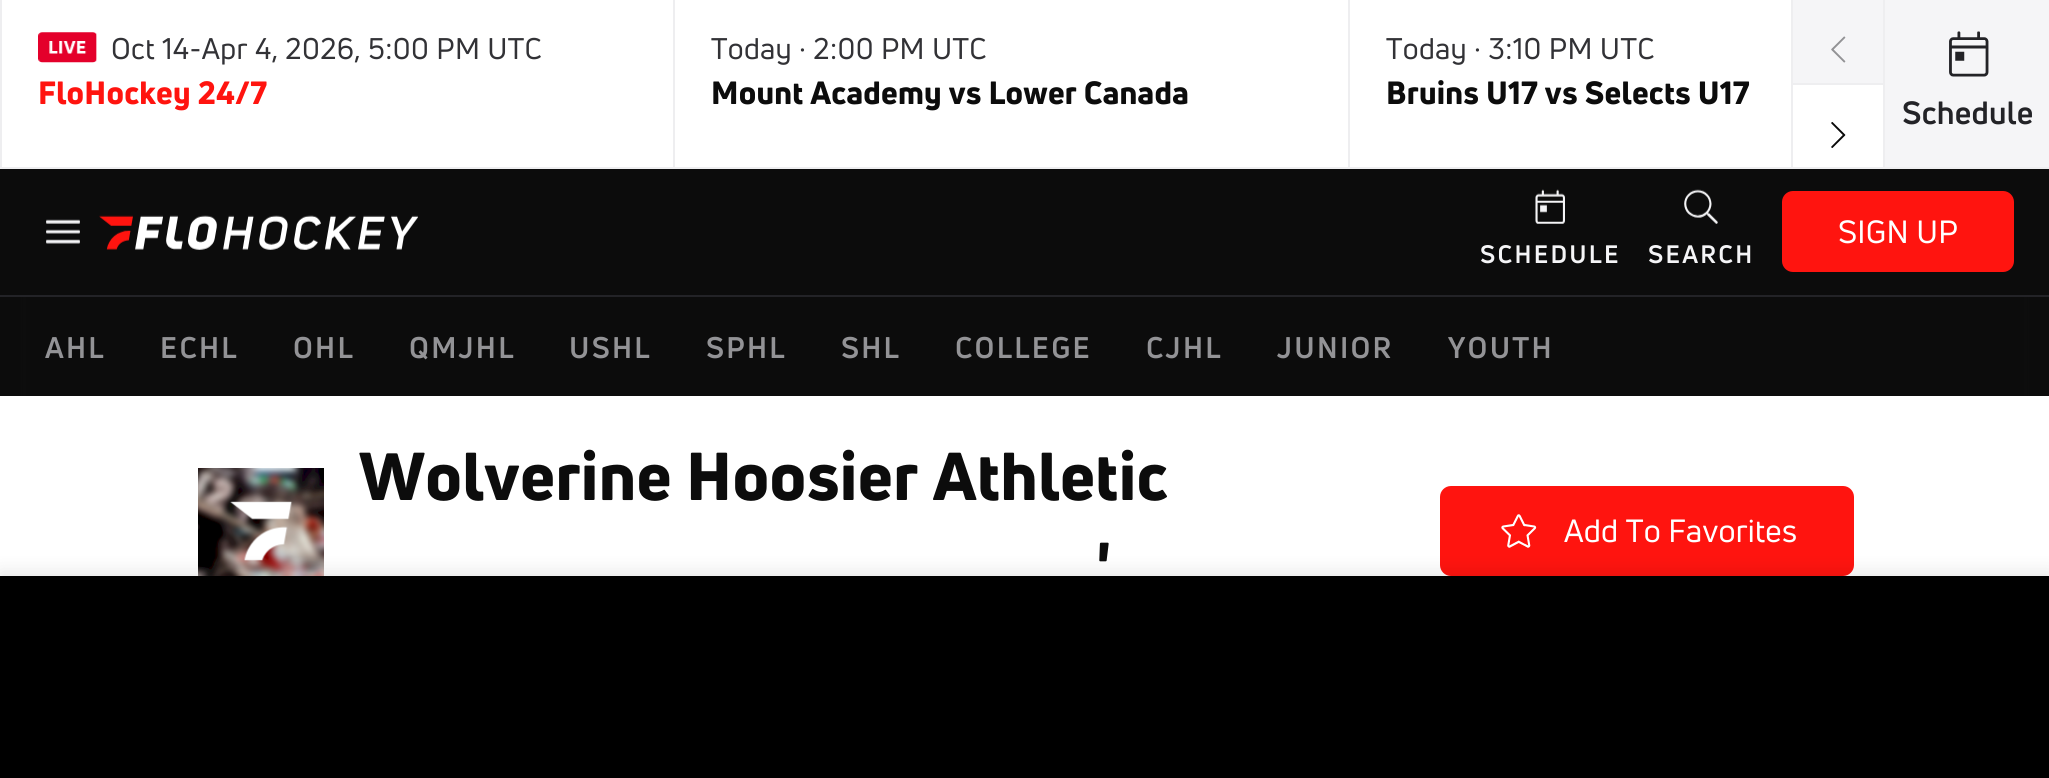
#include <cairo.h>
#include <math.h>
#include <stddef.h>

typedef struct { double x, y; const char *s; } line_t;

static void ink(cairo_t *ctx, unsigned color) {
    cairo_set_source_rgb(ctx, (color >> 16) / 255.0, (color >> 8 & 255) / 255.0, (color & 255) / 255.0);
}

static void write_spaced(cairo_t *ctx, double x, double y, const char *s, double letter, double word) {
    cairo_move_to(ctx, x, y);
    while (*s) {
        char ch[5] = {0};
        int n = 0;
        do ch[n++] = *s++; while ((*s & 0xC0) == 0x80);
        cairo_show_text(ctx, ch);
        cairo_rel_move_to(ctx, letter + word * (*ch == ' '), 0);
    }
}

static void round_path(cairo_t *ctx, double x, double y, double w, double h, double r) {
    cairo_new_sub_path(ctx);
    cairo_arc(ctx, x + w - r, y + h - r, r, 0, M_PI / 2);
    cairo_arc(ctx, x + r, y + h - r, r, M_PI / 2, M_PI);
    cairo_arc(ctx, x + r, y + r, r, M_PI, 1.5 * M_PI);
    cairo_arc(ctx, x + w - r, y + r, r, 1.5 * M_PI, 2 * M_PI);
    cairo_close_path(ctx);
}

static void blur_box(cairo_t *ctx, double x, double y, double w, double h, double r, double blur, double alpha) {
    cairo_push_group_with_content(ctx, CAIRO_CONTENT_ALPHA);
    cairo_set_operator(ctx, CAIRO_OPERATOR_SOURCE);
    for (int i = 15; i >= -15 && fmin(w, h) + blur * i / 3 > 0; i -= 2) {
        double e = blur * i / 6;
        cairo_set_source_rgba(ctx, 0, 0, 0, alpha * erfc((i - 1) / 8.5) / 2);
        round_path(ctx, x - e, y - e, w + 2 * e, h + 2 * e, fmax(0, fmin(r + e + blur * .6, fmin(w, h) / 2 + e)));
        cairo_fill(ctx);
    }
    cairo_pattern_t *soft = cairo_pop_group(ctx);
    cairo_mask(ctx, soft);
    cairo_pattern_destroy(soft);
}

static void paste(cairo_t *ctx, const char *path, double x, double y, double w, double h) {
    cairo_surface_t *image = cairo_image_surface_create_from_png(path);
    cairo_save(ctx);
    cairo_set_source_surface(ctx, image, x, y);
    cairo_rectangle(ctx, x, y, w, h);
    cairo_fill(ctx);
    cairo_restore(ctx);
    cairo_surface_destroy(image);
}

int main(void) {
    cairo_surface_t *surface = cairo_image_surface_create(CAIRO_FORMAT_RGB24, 2049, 778);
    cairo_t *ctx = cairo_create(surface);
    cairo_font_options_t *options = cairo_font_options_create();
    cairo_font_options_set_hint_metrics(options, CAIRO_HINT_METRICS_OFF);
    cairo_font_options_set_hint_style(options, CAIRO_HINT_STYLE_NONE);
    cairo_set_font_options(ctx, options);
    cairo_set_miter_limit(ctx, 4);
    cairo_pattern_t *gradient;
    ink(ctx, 0xEEEEF0);
    cairo_paint(ctx);
    ink(ctx, 0xFFFFFF);
    cairo_rectangle(ctx, 2, 0, 1881, 167);
    cairo_fill(ctx);
    ink(ctx, 0xEEEEF0);
    cairo_rectangle(ctx, 673, 0, 2, 167);
    cairo_fill(ctx);
    paste(ctx, "media/1.png", 38, 32, 59, 31);
    cairo_select_font_face(ctx, "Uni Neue", CAIRO_FONT_SLANT_NORMAL, CAIRO_FONT_WEIGHT_NORMAL);
    cairo_set_font_size(ctx, 29.25);
    ink(ctx, 0x323236);
    write_spaced(ctx, 111, 59, "Oct 14-Apr 4, 2026, 5:00 PM UTC", 0.4, 0);
    cairo_select_font_face(ctx, "Uni Neue Black", CAIRO_FONT_SLANT_NORMAL, CAIRO_FONT_WEIGHT_NORMAL);
    cairo_set_font_size(ctx, 31.5);
    ink(ctx, 0xFF140F);
    write_spaced(ctx, 38, 104, "FloHockey 24/7", 0.25, 0);
    ink(ctx, 0xEEEEF0);
    cairo_rectangle(ctx, 1348, 0, 2, 167);
    cairo_fill(ctx);
    cairo_select_font_face(ctx, "Uni Neue", CAIRO_FONT_SLANT_NORMAL, CAIRO_FONT_WEIGHT_NORMAL);
    cairo_set_font_size(ctx, 29.25);
    ink(ctx, 0x323236);
    write_spaced(ctx, 711, 59, "Today · 2:00 PM UTC", 0.4, 0);
    cairo_select_font_face(ctx, "Uni Neue Black", CAIRO_FONT_SLANT_NORMAL, CAIRO_FONT_WEIGHT_NORMAL);
    cairo_set_font_size(ctx, 31.5);
    ink(ctx, 0x0C0C0C);
    write_spaced(ctx, 711, 104, "Mount Academy vs Lower Canada", 0.25, 0);
    cairo_select_font_face(ctx, "Uni Neue", CAIRO_FONT_SLANT_NORMAL, CAIRO_FONT_WEIGHT_NORMAL);
    cairo_set_font_size(ctx, 29.25);
    ink(ctx, 0x323236);
    write_spaced(ctx, 1386, 59, "Today · 3:10 PM UTC", 0.4, 0);
    cairo_select_font_face(ctx, "Uni Neue Black", CAIRO_FONT_SLANT_NORMAL, CAIRO_FONT_WEIGHT_NORMAL);
    cairo_set_font_size(ctx, 31.5);
    ink(ctx, 0x0C0C0C);
    write_spaced(ctx, 1386, 104, "Bruins U17 vs Selects U17", 0.25, 0);
    ink(ctx, 0xEEEEF0);
    cairo_rectangle(ctx, 1791, 0, 2, 167);
    cairo_fill(ctx);
    ink(ctx, 0xF5F5F7);
    cairo_rectangle(ctx, 1793, 0, 90, 83);
    cairo_fill(ctx);
    paste(ctx, "media/2.png", 1831, 36, 15, 27);
    ink(ctx, 0xEEEEF0);
    cairo_rectangle(ctx, 1793, 83, 90, 2);
    cairo_fill(ctx);
    paste(ctx, "media/3.png", 1831, 122, 15, 26);
    ink(ctx, 0xF5F5F7);
    cairo_rectangle(ctx, 1885, 0, 164, 167);
    cairo_fill(ctx);
    paste(ctx, "media/4.png", 1949, 31, 40, 46);
    cairo_select_font_face(ctx, "Uni Neue", CAIRO_FONT_SLANT_NORMAL, CAIRO_FONT_WEIGHT_BOLD);
    ink(ctx, 0x232327);
    write_spaced(ctx, 1902, 124, "Schedule", 0.25, 0);
    ink(ctx, 0x0C0C0C);
    cairo_rectangle(ctx, 0, 169, 2049, 227);
    cairo_fill(ctx);
    paste(ctx, "media/5.png", 46, 219, 34, 25);
    paste(ctx, "media/6.png", 99, 215, 319, 35);
    ink(ctx, 0xFF140F);
    round_path(ctx, 1783, 192, 230, 79, 10);
    cairo_fill_preserve(ctx);
    cairo_stroke(ctx);
    cairo_select_font_face(ctx, "Uni Neue", CAIRO_FONT_SLANT_NORMAL, CAIRO_FONT_WEIGHT_NORMAL);
    ink(ctx, 0xFFFFFF);
    write_spaced(ctx, 1838, 243, "SIGN UP", 0.25, 0);
    paste(ctx, "media/7.png", 1535, 189, 30, 35);
    cairo_select_font_face(ctx, "Uni Neue", CAIRO_FONT_SLANT_NORMAL, CAIRO_FONT_WEIGHT_BOLD);
    cairo_set_font_size(ctx, 24.75);
    ink(ctx, 0xF5F5F7);
    write_spaced(ctx, 1480, 263, "SCHEDULE", 2.25, 0);
    paste(ctx, "media/8.png", 1684, 189, 34, 35);
    write_spaced(ctx, 1648, 263, "SEARCH", 2.25, 0);
    gradient = cairo_pattern_create_linear(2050, 347, 2023, 347);
    cairo_pattern_add_color_stop_rgba(gradient, 0, 0.361, 0.361, 0.361, 1);
    cairo_pattern_add_color_stop_rgba(gradient, 1, 0.047, 0.047, 0.047, 1);
    cairo_set_source(ctx, gradient);
    cairo_pattern_destroy(gradient);
    cairo_rectangle(ctx, 2024, 297, 5, 99);
    cairo_fill(ctx);
    gradient = cairo_pattern_create_linear(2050, 347, 0, 346);
    cairo_pattern_add_color_stop_rgba(gradient, 0, 0.047, 0.047, 0.047, 1);
    cairo_pattern_add_color_stop_rgba(gradient, 0.01, 0.047, 0.047, 0.047, 1);
    cairo_pattern_add_color_stop_rgba(gradient, 0.03, 0.047, 0.047, 0.047, 0);
    cairo_set_source(ctx, gradient);
    cairo_pattern_destroy(gradient);
    cairo_rectangle(ctx, 2024, 297, 5, 99);
    cairo_fill(ctx);
    gradient = cairo_pattern_create_linear(0, 347, 27, 347);
    cairo_pattern_add_color_stop_rgba(gradient, 0, 0.361, 0.361, 0.361, 1);
    cairo_pattern_add_color_stop_rgba(gradient, 1, 0.047, 0.047, 0.047, 1);
    cairo_set_source(ctx, gradient);
    cairo_pattern_destroy(gradient);
    cairo_rectangle(ctx, 21, 297, 5, 99);
    cairo_fill(ctx);
    gradient = cairo_pattern_create_linear(0, 347, 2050, 346);
    cairo_pattern_add_color_stop_rgba(gradient, 0, 0.047, 0.047, 0.047, 1);
    cairo_pattern_add_color_stop_rgba(gradient, 0.01, 0.047, 0.047, 0.047, 1);
    cairo_pattern_add_color_stop_rgba(gradient, 0.03, 0.047, 0.047, 0.047, 0);
    cairo_set_source(ctx, gradient);
    cairo_pattern_destroy(gradient);
    cairo_rectangle(ctx, 21, 297, 5, 99);
    cairo_fill(ctx);
    ink(ctx, 0x232327);
    cairo_rectangle(ctx, 0, 295, 2049, 2);
    cairo_fill(ctx);
    cairo_set_font_size(ctx, 29.25);
    ink(ctx, 0x939396);
    {
        static const line_t items[] = {
            {45, 358, "AHL"},
            {160, 358, "ECHL"},
            {293, 358, "OHL"},
            {409, 358, "QMJHL"},
            {569, 358, "USHL"},
            {706, 358, "SPHL"},
            {841, 358, "SHL"},
            {955, 358, "COLLEGE"},
            {1146, 358, "CJHL"},
            {1277, 358, "JUNIOR"},
            {1448, 358, "YOUTH"},
        };
        for (size_t i = 0; i < sizeof items / sizeof *items; i++) {
            write_spaced(ctx, items[i].x, items[i].y, items[i].s, 2.25, 0);
        }
    }
    ink(ctx, 0xFFFFFF);
    cairo_rectangle(ctx, 0, 396, 2049, 180);
    cairo_fill(ctx);
    paste(ctx, "media/9.png", 198, 468, 126, 108);
    cairo_select_font_face(ctx, "Uni Neue Black", CAIRO_FONT_SLANT_NORMAL, CAIRO_FONT_WEIGHT_NORMAL);
    cairo_set_font_size(ctx, 66.2);
    ink(ctx, 0x0C0C0C);
    write_spaced(ctx, 359, 500, "Wolverine Hoosier Athletic", 0.4, 0);
    write_spaced(ctx, 1096, 590, "'", 0.4, 0);
    ink(ctx, 0xFF140F);
    round_path(ctx, 1441, 487, 412, 88, 10);
    cairo_fill_preserve(ctx);
    cairo_stroke(ctx);
    paste(ctx, "media/10.png", 1501, 514, 36, 34);
    cairo_select_font_face(ctx, "Uni Neue", CAIRO_FONT_SLANT_NORMAL, CAIRO_FONT_WEIGHT_NORMAL);
    cairo_set_font_size(ctx, 31.5);
    ink(ctx, 0xFFFFFF);
    write_spaced(ctx, 1564, 542, "Add To Favorites", 0.25, 0);
    ink(ctx, 0x000000);
    blur_box(ctx, 0, 572, 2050, 202, 0, 9, 0.1);
    ink(ctx, 0x000000);
    cairo_rectangle(ctx, 0, 576, 2049, 202);
    cairo_fill(ctx);
    cairo_surface_write_to_png(surface, "image.png");
    cairo_font_options_destroy(options);
    cairo_destroy(ctx);
    cairo_surface_destroy(surface);
    return 0;
}
